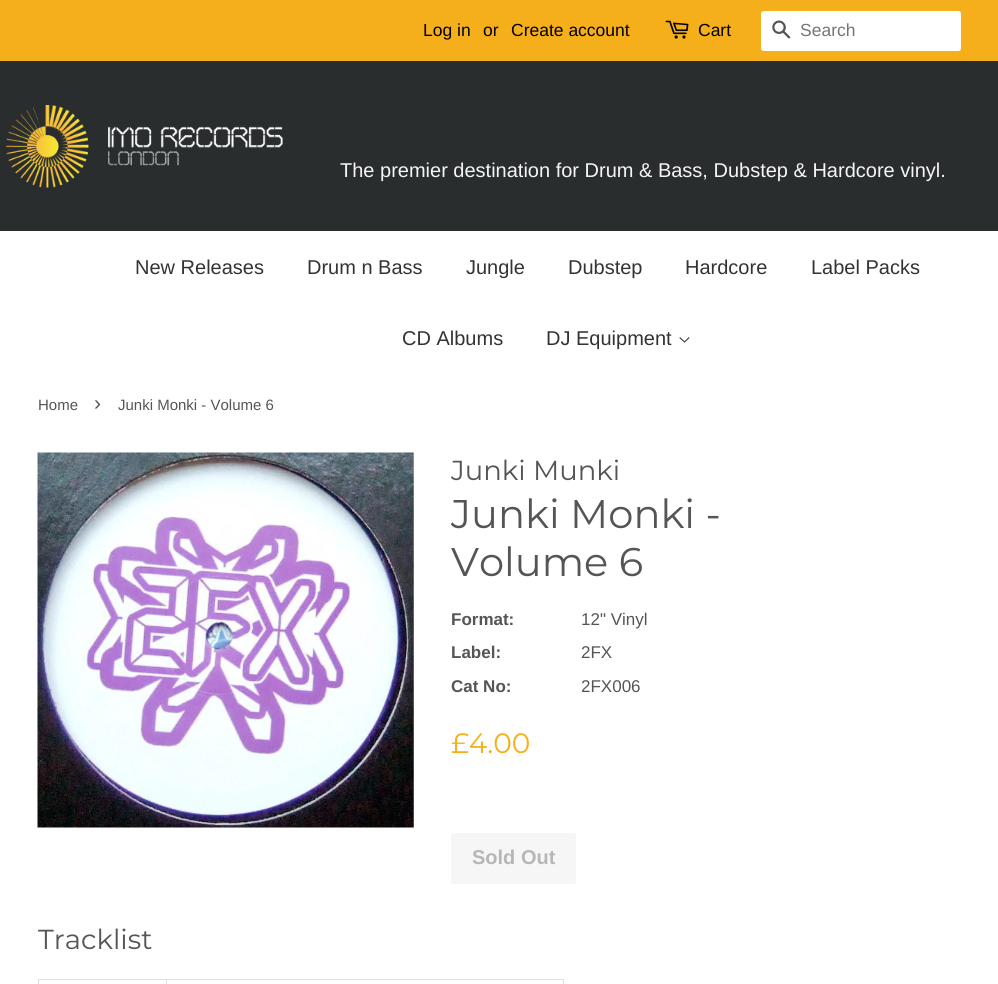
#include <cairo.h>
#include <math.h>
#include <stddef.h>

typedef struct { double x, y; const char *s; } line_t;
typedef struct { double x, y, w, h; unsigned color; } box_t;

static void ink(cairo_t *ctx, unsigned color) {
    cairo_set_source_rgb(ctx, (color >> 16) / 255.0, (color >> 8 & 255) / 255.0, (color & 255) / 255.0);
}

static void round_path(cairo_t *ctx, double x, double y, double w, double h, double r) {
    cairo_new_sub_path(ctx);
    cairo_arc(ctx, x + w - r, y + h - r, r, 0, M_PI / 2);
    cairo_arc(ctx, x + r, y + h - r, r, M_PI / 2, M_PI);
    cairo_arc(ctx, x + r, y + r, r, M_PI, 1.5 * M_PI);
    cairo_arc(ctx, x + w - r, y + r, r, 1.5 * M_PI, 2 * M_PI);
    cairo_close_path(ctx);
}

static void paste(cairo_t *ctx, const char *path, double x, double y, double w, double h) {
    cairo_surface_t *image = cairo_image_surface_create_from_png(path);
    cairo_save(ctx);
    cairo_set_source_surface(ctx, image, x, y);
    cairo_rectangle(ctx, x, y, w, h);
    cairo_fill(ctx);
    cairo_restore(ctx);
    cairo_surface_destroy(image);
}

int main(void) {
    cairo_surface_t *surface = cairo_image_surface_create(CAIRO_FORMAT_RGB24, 998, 984);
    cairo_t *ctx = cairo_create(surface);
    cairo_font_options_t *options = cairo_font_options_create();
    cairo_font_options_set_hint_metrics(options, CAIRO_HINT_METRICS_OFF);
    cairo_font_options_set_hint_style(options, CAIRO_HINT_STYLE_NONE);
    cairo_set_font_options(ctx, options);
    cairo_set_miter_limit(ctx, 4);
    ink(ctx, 0xFFFFFF);
    cairo_paint(ctx);
    ink(ctx, 0xF5AF1A);
    cairo_rectangle(ctx, 0, 0, 998, 61);
    cairo_fill(ctx);
    cairo_select_font_face(ctx, "Liberation Sans", CAIRO_FONT_SLANT_NORMAL, CAIRO_FONT_WEIGHT_NORMAL);
    cairo_set_font_size(ctx, 17.5);
    ink(ctx, 0x000000);
    {
        static const line_t items[] = {
            {423, 36, "Log in"},
            {483, 36, "or"},
            {511, 36, "Create account"},
        };
        for (size_t i = 0; i < sizeof items / sizeof *items; i++) {
            cairo_move_to(ctx, items[i].x, items[i].y);
            cairo_show_text(ctx, items[i].s);
        }
    }
    paste(ctx, "media/1.png", 665, 20, 24, 19);
    cairo_move_to(ctx, 698, 36);
    cairo_show_text(ctx, "Cart");
    ink(ctx, 0xFFFFFF);
    round_path(ctx, 761, 11, 200, 40, 2.5);
    cairo_fill(ctx);
    paste(ctx, "media/2.png", 772, 20, 19, 19);
    ink(ctx, 0x757575);
    cairo_move_to(ctx, 800, 36);
    cairo_show_text(ctx, "Search");
    ink(ctx, 0x292D2E);
    cairo_rectangle(ctx, 0, 61, 998, 170);
    cairo_fill(ctx);
    paste(ctx, "media/3.png", 6, 105, 277, 83);
    cairo_set_font_size(ctx, 20);
    ink(ctx, 0xF5F5F5);
    cairo_move_to(ctx, 340, 177);
    cairo_show_text(ctx, "The premier destination for Drum & Bass, Dubstep & Hardcore vinyl.");
    ink(ctx, 0x333333);
    {
        static const line_t items[] = {
            {135, 274, "New Releases"},
            {307, 274, "Drum n Bass"},
            {466, 274, "Jungle"},
            {568, 274, "Dubstep"},
            {685, 274, "Hardcore"},
            {811, 274, "Label Packs"},
            {402, 345, "CD Albums"},
            {546, 345, "DJ Equipment"},
        };
        for (size_t i = 0; i < sizeof items / sizeof *items; i++) {
            cairo_move_to(ctx, items[i].x, items[i].y);
            cairo_show_text(ctx, items[i].s);
        }
    }
    paste(ctx, "media/4.png", 679, 337, 11, 6);
    cairo_set_font_size(ctx, 15);
    ink(ctx, 0x555555);
    cairo_move_to(ctx, 38, 410);
    cairo_show_text(ctx, "Home");
    cairo_set_font_size(ctx, 21);
    cairo_move_to(ctx, 94, 410);
    cairo_show_text(ctx, "›");
    cairo_set_font_size(ctx, 15);
    cairo_move_to(ctx, 118, 410);
    cairo_show_text(ctx, "Junki Monki - Volume 6");
    paste(ctx, "media/5.png", 37, 452, 377, 376);
    cairo_select_font_face(ctx, "Montserrat Thin", CAIRO_FONT_SLANT_NORMAL, CAIRO_FONT_WEIGHT_NORMAL);
    cairo_set_font_size(ctx, 27.5);
    cairo_move_to(ctx, 451, 480);
    cairo_show_text(ctx, "Junki Munki");
    cairo_set_font_size(ctx, 40);
    cairo_move_to(ctx, 451, 528);
    cairo_show_text(ctx, "Junki Monki -");
    cairo_move_to(ctx, 451, 576);
    cairo_show_text(ctx, "Volume 6");
    cairo_select_font_face(ctx, "Liberation Sans", CAIRO_FONT_SLANT_NORMAL, CAIRO_FONT_WEIGHT_BOLD);
    cairo_set_font_size(ctx, 17);
    cairo_move_to(ctx, 451, 625);
    cairo_show_text(ctx, "Format:");
    cairo_select_font_face(ctx, "Liberation Sans", CAIRO_FONT_SLANT_NORMAL, CAIRO_FONT_WEIGHT_NORMAL);
    cairo_move_to(ctx, 581, 625);
    cairo_show_text(ctx, "12\" Vinyl");
    cairo_select_font_face(ctx, "Liberation Sans", CAIRO_FONT_SLANT_NORMAL, CAIRO_FONT_WEIGHT_BOLD);
    cairo_move_to(ctx, 451, 658);
    cairo_show_text(ctx, "Label:");
    cairo_select_font_face(ctx, "Liberation Sans", CAIRO_FONT_SLANT_NORMAL, CAIRO_FONT_WEIGHT_NORMAL);
    cairo_move_to(ctx, 581, 658);
    cairo_show_text(ctx, "2FX");
    cairo_select_font_face(ctx, "Liberation Sans", CAIRO_FONT_SLANT_NORMAL, CAIRO_FONT_WEIGHT_BOLD);
    cairo_move_to(ctx, 451, 692);
    cairo_show_text(ctx, "Cat No:");
    cairo_select_font_face(ctx, "Liberation Sans", CAIRO_FONT_SLANT_NORMAL, CAIRO_FONT_WEIGHT_NORMAL);
    cairo_move_to(ctx, 581, 692);
    cairo_show_text(ctx, "2FX006");
    cairo_select_font_face(ctx, "Montserrat Thin", CAIRO_FONT_SLANT_NORMAL, CAIRO_FONT_WEIGHT_NORMAL);
    cairo_set_font_size(ctx, 28);
    ink(ctx, 0xF5AF1A);
    cairo_move_to(ctx, 451, 753);
    cairo_show_text(ctx, "£4.00");
    ink(ctx, 0xF6F6F6);
    round_path(ctx, 451, 833, 125, 51, 2.5);
    cairo_fill(ctx);
    cairo_select_font_face(ctx, "Liberation Sans", CAIRO_FONT_SLANT_NORMAL, CAIRO_FONT_WEIGHT_BOLD);
    cairo_set_font_size(ctx, 20);
    ink(ctx, 0xB6B6B6);
    cairo_move_to(ctx, 472, 864);
    cairo_show_text(ctx, "Sold Out");
    cairo_select_font_face(ctx, "Montserrat Thin", CAIRO_FONT_SLANT_NORMAL, CAIRO_FONT_WEIGHT_NORMAL);
    cairo_set_font_size(ctx, 27.5);
    ink(ctx, 0x555555);
    cairo_move_to(ctx, 38, 949);
    cairo_show_text(ctx, "Tracklist");
    {
        static const box_t items[] = {
            {166, 979, 398, 1, 0xDDDDDD},
            {166, 979, 1, 5, 0xDDDDDD},
            {38, 979, 130, 1, 0xDDDDDD},
            {38, 979, 1, 5, 0xDDDDDD},
            {563, 979, 1, 5, 0xDDDDDD},
        };
        for (size_t i = 0; i < sizeof items / sizeof *items; i++) {
            ink(ctx, items[i].color);
            cairo_rectangle(ctx, items[i].x, items[i].y, items[i].w, items[i].h);
            cairo_fill(ctx);
        }
    }
    cairo_surface_write_to_png(surface, "image.png");
    cairo_font_options_destroy(options);
    cairo_destroy(ctx);
    cairo_surface_destroy(surface);
    return 0;
}
